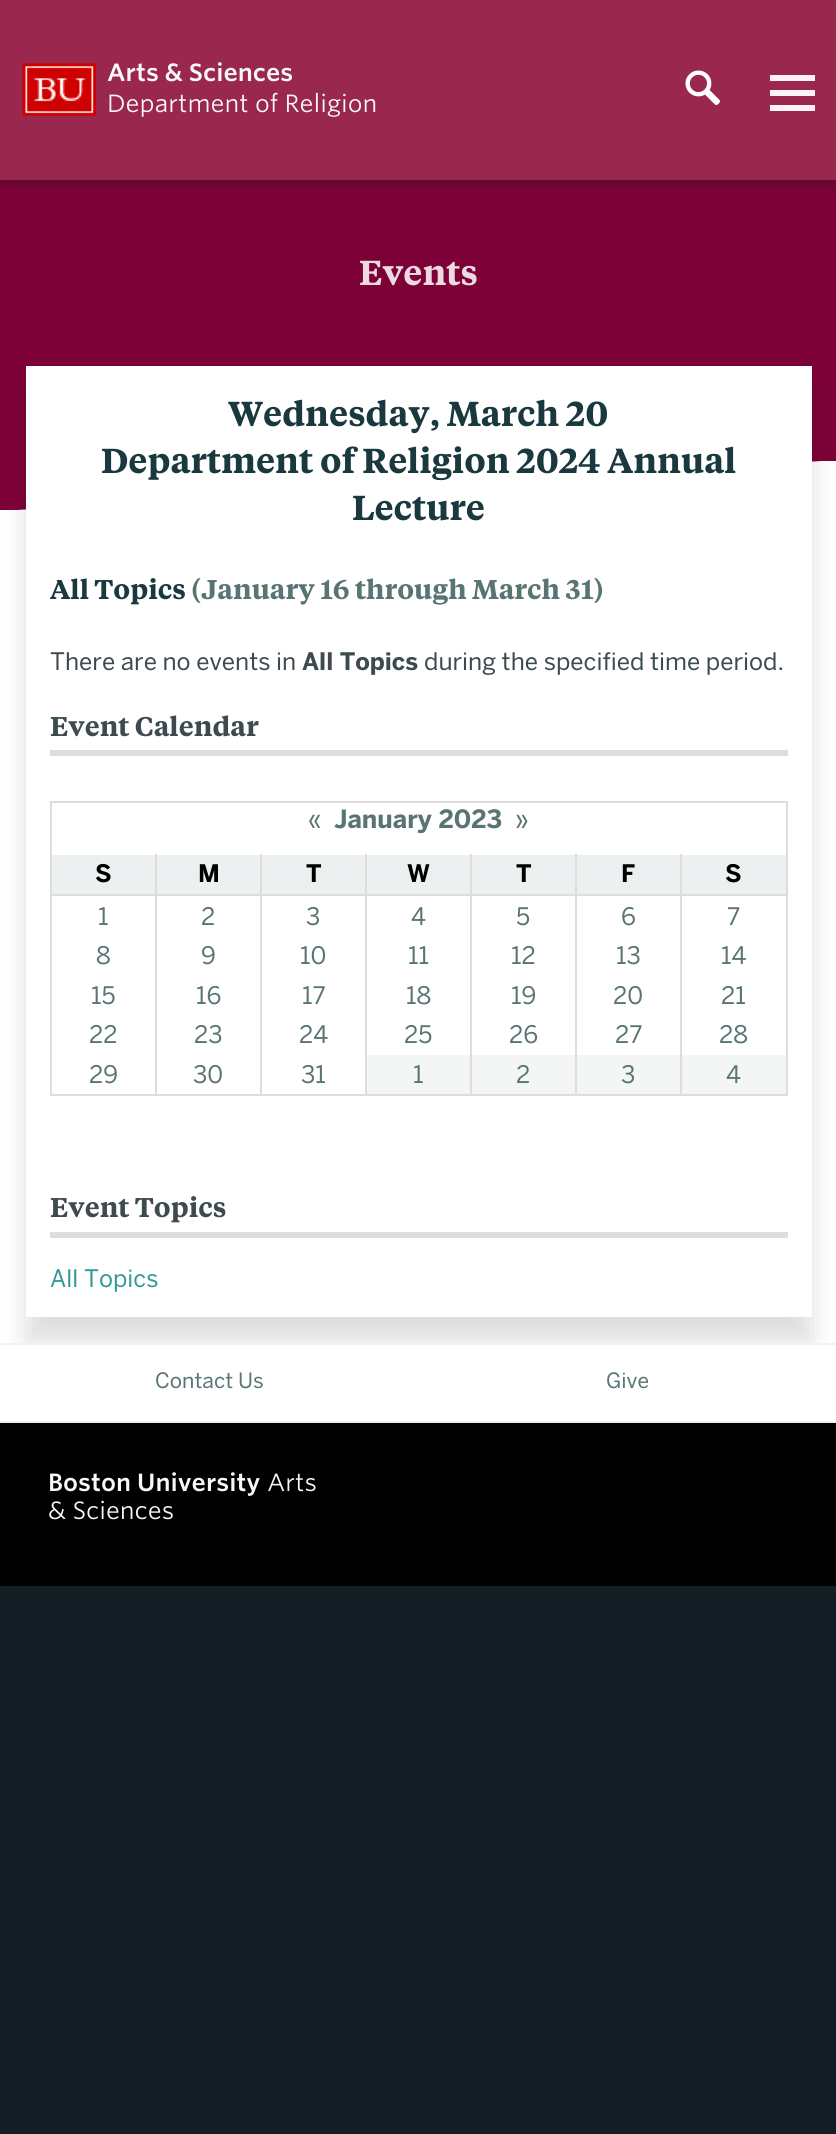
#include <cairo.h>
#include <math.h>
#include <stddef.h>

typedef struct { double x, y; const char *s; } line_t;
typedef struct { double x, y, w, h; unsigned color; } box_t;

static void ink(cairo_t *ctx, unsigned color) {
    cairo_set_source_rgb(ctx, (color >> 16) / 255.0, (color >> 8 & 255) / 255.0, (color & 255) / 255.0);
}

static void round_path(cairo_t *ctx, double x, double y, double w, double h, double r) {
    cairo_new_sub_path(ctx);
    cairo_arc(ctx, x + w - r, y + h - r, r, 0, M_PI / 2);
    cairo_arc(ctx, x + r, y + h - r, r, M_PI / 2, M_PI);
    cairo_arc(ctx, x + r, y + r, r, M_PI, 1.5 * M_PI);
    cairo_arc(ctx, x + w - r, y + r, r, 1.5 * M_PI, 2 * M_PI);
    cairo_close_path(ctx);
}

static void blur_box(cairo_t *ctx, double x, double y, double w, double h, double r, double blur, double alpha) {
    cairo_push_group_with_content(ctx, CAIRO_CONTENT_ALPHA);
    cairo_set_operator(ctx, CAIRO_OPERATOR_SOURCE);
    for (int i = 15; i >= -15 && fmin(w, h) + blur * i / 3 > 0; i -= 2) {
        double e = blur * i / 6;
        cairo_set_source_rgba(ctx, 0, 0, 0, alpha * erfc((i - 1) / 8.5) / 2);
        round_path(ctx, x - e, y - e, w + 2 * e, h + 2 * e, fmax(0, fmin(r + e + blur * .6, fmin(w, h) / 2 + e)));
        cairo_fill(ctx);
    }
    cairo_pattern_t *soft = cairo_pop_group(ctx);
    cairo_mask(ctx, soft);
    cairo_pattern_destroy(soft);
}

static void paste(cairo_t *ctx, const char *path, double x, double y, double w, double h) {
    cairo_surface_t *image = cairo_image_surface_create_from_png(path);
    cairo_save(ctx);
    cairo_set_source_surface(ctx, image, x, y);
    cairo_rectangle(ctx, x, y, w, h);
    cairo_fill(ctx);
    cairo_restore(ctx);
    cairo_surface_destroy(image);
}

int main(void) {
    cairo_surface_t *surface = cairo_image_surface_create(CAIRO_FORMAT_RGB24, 836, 2134);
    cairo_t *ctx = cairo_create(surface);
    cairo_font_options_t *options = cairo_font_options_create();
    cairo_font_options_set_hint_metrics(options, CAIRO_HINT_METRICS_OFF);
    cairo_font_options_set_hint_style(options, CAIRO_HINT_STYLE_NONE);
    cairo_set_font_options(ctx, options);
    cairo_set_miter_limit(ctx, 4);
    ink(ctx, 0x121E24);
    cairo_paint(ctx);
    ink(ctx, 0x9A284E);
    cairo_rectangle(ctx, 0, 0, 836, 180);
    cairo_fill(ctx);
    ink(ctx, 0x7D0137);
    cairo_rectangle(ctx, 0, 180, 836, 330);
    cairo_fill(ctx);
    cairo_save(ctx);
    cairo_rectangle(ctx, 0, 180, 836, 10);
    cairo_clip(ctx);
    ink(ctx, 0x121E24);
    blur_box(ctx, 0, 6, 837, 180, 0, 3, 0.25);
    cairo_restore(ctx);
    paste(ctx, "media/1.png", 22, 63, 74, 53);
    cairo_select_font_face(ctx, "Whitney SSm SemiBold", CAIRO_FONT_SLANT_NORMAL, CAIRO_FONT_WEIGHT_NORMAL);
    cairo_set_font_size(ctx, 24);
    ink(ctx, 0xF8F8FB);
    cairo_move_to(ctx, 107, 81);
    cairo_show_text(ctx, "Arts & Sciences");
    cairo_select_font_face(ctx, "Whitney SSm", CAIRO_FONT_SLANT_NORMAL, CAIRO_FONT_WEIGHT_NORMAL);
    cairo_move_to(ctx, 107, 112);
    cairo_show_text(ctx, "Department of Religion");
    paste(ctx, "media/2.png", 685, 70, 35, 35);
    {
        static const box_t items[] = {
            {770, 90, 45, 6, 0xFFF2F6},
            {770, 75, 45, 6, 0xFFF2F6},
            {770, 105, 45, 6, 0xFFF2F6},
            {0, 510, 836, 833, 0xFFFFFF},
        };
        for (size_t i = 0; i < sizeof items / sizeof *items; i++) {
            ink(ctx, items[i].color);
            cairo_rectangle(ctx, items[i].x, items[i].y, items[i].w, items[i].h);
            cairo_fill(ctx);
        }
    }
    cairo_select_font_face(ctx, "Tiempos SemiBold", CAIRO_FONT_SLANT_NORMAL, CAIRO_FONT_WEIGHT_NORMAL);
    cairo_set_font_size(ctx, 34.5);
    ink(ctx, 0xECD9E1);
    cairo_move_to(ctx, 359, 285);
    cairo_show_text(ctx, "Events");
    cairo_save(ctx);
    cairo_rectangle(ctx, 0, 461, 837, 49);
    cairo_clip(ctx);
    ink(ctx, 0xFFFFFF);
    cairo_new_path(ctx);
    cairo_move_to(ctx, 0, 511);
    cairo_line_to(ctx, 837, 460);
    cairo_line_to(ctx, 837, 511);
    cairo_close_path(ctx);
    cairo_fill(ctx);
    cairo_restore(ctx);
    ink(ctx, 0x121E24);
    blur_box(ctx, 26, 390, 786, 951, 0, 12, 0.15);
    ink(ctx, 0xFFFFFF);
    cairo_rectangle(ctx, 26, 366, 786, 951);
    cairo_fill(ctx);
    ink(ctx, 0x19393E);
    {
        static const line_t items[] = {
            {228, 426, "Wednesday, March 20"},
            {101, 473, "Department of Religion 2024 Annual"},
            {352, 520, "Lecture"},
        };
        for (size_t i = 0; i < sizeof items / sizeof *items; i++) {
            cairo_move_to(ctx, items[i].x, items[i].y);
            cairo_show_text(ctx, items[i].s);
        }
    }
    cairo_set_font_size(ctx, 27);
    cairo_move_to(ctx, 50, 599);
    cairo_show_text(ctx, "All Topics");
    ink(ctx, 0x587473);
    cairo_move_to(ctx, 191, 599);
    cairo_show_text(ctx, "(January 16 through March 31)");
    cairo_select_font_face(ctx, "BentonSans", CAIRO_FONT_SLANT_NORMAL, CAIRO_FONT_WEIGHT_NORMAL);
    cairo_set_font_size(ctx, 24);
    ink(ctx, 0x3D4A50);
    cairo_move_to(ctx, 50, 670);
    cairo_show_text(ctx, "There are no events in");
    cairo_select_font_face(ctx, "BentonSans", CAIRO_FONT_SLANT_NORMAL, CAIRO_FONT_WEIGHT_BOLD);
    cairo_move_to(ctx, 302, 670);
    cairo_show_text(ctx, "All Topics");
    cairo_select_font_face(ctx, "BentonSans", CAIRO_FONT_SLANT_NORMAL, CAIRO_FONT_WEIGHT_NORMAL);
    cairo_move_to(ctx, 424, 670);
    cairo_show_text(ctx, "during the specified time period.");
    ink(ctx, 0xDDDDDD);
    cairo_rectangle(ctx, 50, 750, 738, 6);
    cairo_fill(ctx);
    cairo_select_font_face(ctx, "Tiempos SemiBold", CAIRO_FONT_SLANT_NORMAL, CAIRO_FONT_WEIGHT_NORMAL);
    cairo_set_font_size(ctx, 27);
    ink(ctx, 0x3D4A50);
    cairo_move_to(ctx, 50, 736);
    cairo_show_text(ctx, "Event Calendar");
    {
        static const box_t items[] = {
            {50, 801, 738, 2, 0xDDDDDD},
            {786, 801, 2, 294, 0xDDDDDD},
            {50, 1094, 738, 2, 0xDDDDDD},
            {50, 801, 2, 294, 0xDDDDDD},
        };
        for (size_t i = 0; i < sizeof items / sizeof *items; i++) {
            ink(ctx, items[i].color);
            cairo_rectangle(ctx, items[i].x, items[i].y, items[i].w, items[i].h);
            cairo_fill(ctx);
        }
    }
    cairo_select_font_face(ctx, "BentonSans", CAIRO_FONT_SLANT_NORMAL, CAIRO_FONT_WEIGHT_NORMAL);
    cairo_set_font_size(ctx, 25);
    ink(ctx, 0x587473);
    cairo_move_to(ctx, 308, 828);
    cairo_show_text(ctx, "«");
    cairo_select_font_face(ctx, "BentonSans", CAIRO_FONT_SLANT_NORMAL, CAIRO_FONT_WEIGHT_BOLD);
    cairo_move_to(ctx, 334, 828);
    cairo_show_text(ctx, "January 2023");
    cairo_select_font_face(ctx, "BentonSans", CAIRO_FONT_SLANT_NORMAL, CAIRO_FONT_WEIGHT_NORMAL);
    cairo_move_to(ctx, 515, 828);
    cairo_show_text(ctx, "»");
    {
        static const box_t items[] = {
            {52, 855, 734, 39, 0xECF0F0},
            {680, 894, 2, 201, 0xDDDDDD},
            {680, 894, 108, 2, 0xDDDDDD},
            {680, 854, 2, 42, 0xDDDDDD},
            {575, 894, 2, 201, 0xDDDDDD},
            {575, 894, 106, 2, 0xDDDDDD},
            {575, 854, 2, 42, 0xDDDDDD},
            {470, 894, 2, 201, 0xDDDDDD},
            {470, 894, 106, 2, 0xDDDDDD},
            {470, 854, 2, 42, 0xDDDDDD},
            {365, 894, 2, 201, 0xDDDDDD},
            {365, 894, 106, 2, 0xDDDDDD},
            {365, 854, 2, 42, 0xDDDDDD},
            {260, 894, 2, 201, 0xDDDDDD},
            {260, 894, 106, 2, 0xDDDDDD},
            {260, 854, 2, 42, 0xDDDDDD},
            {155, 894, 2, 201, 0xDDDDDD},
            {155, 894, 106, 2, 0xDDDDDD},
            {155, 854, 2, 42, 0xDDDDDD},
            {50, 894, 106, 2, 0xDDDDDD},
        };
        for (size_t i = 0; i < sizeof items / sizeof *items; i++) {
            ink(ctx, items[i].color);
            cairo_rectangle(ctx, items[i].x, items[i].y, items[i].w, items[i].h);
            cairo_fill(ctx);
        }
    }
    cairo_select_font_face(ctx, "BentonSans", CAIRO_FONT_SLANT_NORMAL, CAIRO_FONT_WEIGHT_BOLD);
    cairo_set_font_size(ctx, 24);
    ink(ctx, 0x000000);
    {
        static const line_t items[] = {
            {95, 882, "S"},
            {198, 882, "M"},
            {306, 882, "T"},
            {407, 882, "W"},
            {516, 882, "T"},
            {621, 882, "F"},
            {725, 882, "S"},
        };
        for (size_t i = 0; i < sizeof items / sizeof *items; i++) {
            cairo_move_to(ctx, items[i].x, items[i].y);
            cairo_show_text(ctx, items[i].s);
        }
    }
    cairo_select_font_face(ctx, "BentonSans", CAIRO_FONT_SLANT_NORMAL, CAIRO_FONT_WEIGHT_NORMAL);
    ink(ctx, 0x587473);
    {
        static const line_t items[] = {
            {98, 925, "1"},
            {201, 925, "2"},
            {306, 925, "3"},
            {411, 925, "4"},
            {516, 925, "5"},
            {621, 925, "6"},
            {727, 925, "7"},
            {96, 964, "8"},
            {201, 964, "9"},
            {300, 964, "10"},
            {408, 964, "11"},
            {511, 964, "12"},
            {616, 964, "13"},
            {721, 964, "14"},
            {91, 1004, "15"},
            {196, 1004, "16"},
            {302, 1004, "17"},
            {406, 1004, "18"},
            {511, 1004, "19"},
            {613, 1004, "20"},
            {721, 1004, "21"},
            {89, 1043, "22"},
            {194, 1043, "23"},
            {299, 1043, "24"},
            {404, 1043, "25"},
            {509, 1043, "26"},
            {615, 1043, "27"},
            {719, 1043, "28"},
            {89, 1083, "29"},
            {193, 1083, "30"},
            {301, 1083, "31"},
        };
        for (size_t i = 0; i < sizeof items / sizeof *items; i++) {
            cairo_move_to(ctx, items[i].x, items[i].y);
            cairo_show_text(ctx, items[i].s);
        }
    }
    ink(ctx, 0xF4F6F6);
    cairo_rectangle(ctx, 367, 1055, 103, 39);
    cairo_fill(ctx);
    ink(ctx, 0x587473);
    cairo_move_to(ctx, 413, 1083);
    cairo_show_text(ctx, "1");
    ink(ctx, 0xF4F6F6);
    cairo_rectangle(ctx, 472, 1055, 103, 39);
    cairo_fill(ctx);
    ink(ctx, 0x587473);
    cairo_move_to(ctx, 516, 1083);
    cairo_show_text(ctx, "2");
    ink(ctx, 0xF4F6F6);
    cairo_rectangle(ctx, 577, 1055, 103, 39);
    cairo_fill(ctx);
    ink(ctx, 0x587473);
    cairo_move_to(ctx, 621, 1083);
    cairo_show_text(ctx, "3");
    ink(ctx, 0xF4F6F6);
    cairo_rectangle(ctx, 682, 1055, 104, 39);
    cairo_fill(ctx);
    ink(ctx, 0x587473);
    cairo_move_to(ctx, 726, 1083);
    cairo_show_text(ctx, "4");
    ink(ctx, 0xDDDDDD);
    cairo_rectangle(ctx, 50, 1232, 738, 6);
    cairo_fill(ctx);
    cairo_select_font_face(ctx, "Tiempos SemiBold", CAIRO_FONT_SLANT_NORMAL, CAIRO_FONT_WEIGHT_NORMAL);
    cairo_set_font_size(ctx, 27);
    ink(ctx, 0x3D4A50);
    cairo_move_to(ctx, 50, 1217);
    cairo_show_text(ctx, "Event Topics");
    cairo_select_font_face(ctx, "BentonSans", CAIRO_FONT_SLANT_NORMAL, CAIRO_FONT_WEIGHT_NORMAL);
    cairo_set_font_size(ctx, 24);
    ink(ctx, 0x339999);
    cairo_move_to(ctx, 50, 1287);
    cairo_show_text(ctx, "All Topics");
    {
        static const box_t items[] = {
            {0, 1423, 836, 163, 0x000000},
            {0, 1345, 836, 76, 0xFFFFFF},
            {0, 1343, 836, 2, 0xF2F2F2},
            {0, 1421, 836, 2, 0xF2F2F2},
        };
        for (size_t i = 0; i < sizeof items / sizeof *items; i++) {
            ink(ctx, items[i].color);
            cairo_rectangle(ctx, items[i].x, items[i].y, items[i].w, items[i].h);
            cairo_fill(ctx);
        }
    }
    cairo_set_font_size(ctx, 21);
    ink(ctx, 0x587473);
    cairo_move_to(ctx, 155, 1388);
    cairo_show_text(ctx, "Contact Us");
    cairo_move_to(ctx, 606, 1388);
    cairo_show_text(ctx, "Give");
    cairo_select_font_face(ctx, "Whitney SSm SemiBold", CAIRO_FONT_SLANT_NORMAL, CAIRO_FONT_WEIGHT_NORMAL);
    cairo_set_font_size(ctx, 24);
    ink(ctx, 0xF8F8FB);
    cairo_move_to(ctx, 48, 1491);
    cairo_show_text(ctx, "Boston University");
    cairo_select_font_face(ctx, "Whitney SSm", CAIRO_FONT_SLANT_NORMAL, CAIRO_FONT_WEIGHT_NORMAL);
    cairo_move_to(ctx, 267, 1491);
    cairo_show_text(ctx, "Arts");
    cairo_move_to(ctx, 48, 1519);
    cairo_show_text(ctx, "& Sciences");
    cairo_surface_write_to_png(surface, "image.png");
    cairo_font_options_destroy(options);
    cairo_destroy(ctx);
    cairo_surface_destroy(surface);
    return 0;
}
